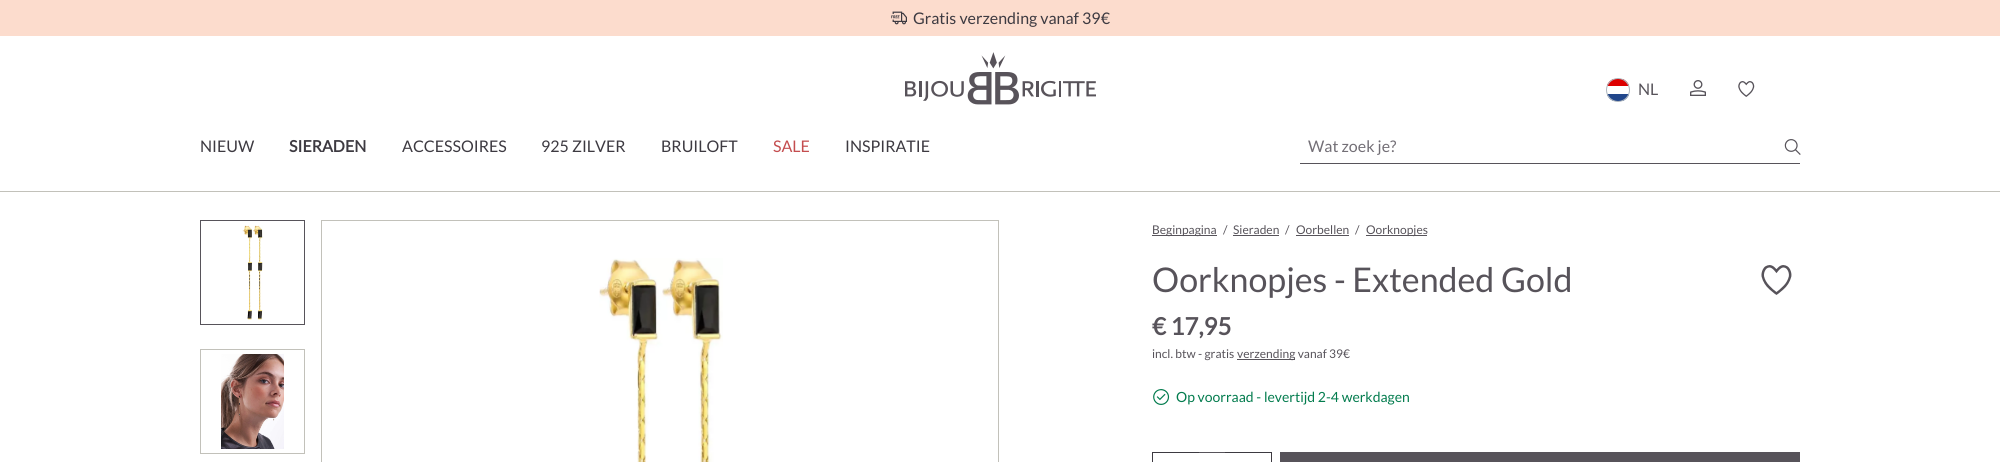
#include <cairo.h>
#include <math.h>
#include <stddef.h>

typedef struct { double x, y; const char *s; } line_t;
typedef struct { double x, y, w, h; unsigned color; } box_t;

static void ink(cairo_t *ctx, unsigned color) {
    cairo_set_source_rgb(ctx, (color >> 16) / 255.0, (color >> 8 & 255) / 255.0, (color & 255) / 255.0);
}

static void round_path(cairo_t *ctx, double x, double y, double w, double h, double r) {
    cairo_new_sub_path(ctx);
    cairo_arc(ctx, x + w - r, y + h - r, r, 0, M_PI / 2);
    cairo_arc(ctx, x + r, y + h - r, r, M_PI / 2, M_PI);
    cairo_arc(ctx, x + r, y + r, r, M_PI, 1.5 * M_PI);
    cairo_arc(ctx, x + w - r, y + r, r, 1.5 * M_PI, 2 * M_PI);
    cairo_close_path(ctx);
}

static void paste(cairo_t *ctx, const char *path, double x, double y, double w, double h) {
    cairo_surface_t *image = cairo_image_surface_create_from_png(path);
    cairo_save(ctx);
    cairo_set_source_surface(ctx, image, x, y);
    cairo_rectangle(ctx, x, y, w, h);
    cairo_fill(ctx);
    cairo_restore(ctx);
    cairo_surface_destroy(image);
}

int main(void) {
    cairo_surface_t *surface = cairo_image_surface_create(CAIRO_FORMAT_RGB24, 2000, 462);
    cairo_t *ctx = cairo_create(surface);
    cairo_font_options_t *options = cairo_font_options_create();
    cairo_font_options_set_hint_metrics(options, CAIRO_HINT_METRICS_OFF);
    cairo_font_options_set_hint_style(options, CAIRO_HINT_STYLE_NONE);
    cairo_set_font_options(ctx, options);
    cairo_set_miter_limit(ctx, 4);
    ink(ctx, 0xFFFFFF);
    cairo_paint(ctx);
    ink(ctx, 0xC2C1BA);
    cairo_rectangle(ctx, 0, 191, 2000, 1);
    cairo_fill(ctx);
    ink(ctx, 0xFCDCCD);
    cairo_rectangle(ctx, 0, 0, 2000, 36);
    cairo_fill(ctx);
    paste(ctx, "media/1.png", 891, 11, 16, 14);
    cairo_select_font_face(ctx, "Lato", CAIRO_FONT_SLANT_NORMAL, CAIRO_FONT_WEIGHT_NORMAL);
    cairo_set_font_size(ctx, 16);
    ink(ctx, 0x3D3A41);
    cairo_move_to(ctx, 913, 24);
    cairo_show_text(ctx, "Gratis verzending vanaf 39€");
    paste(ctx, "media/2.png", 905, 52, 191, 53);
    cairo_save(ctx);
    round_path(ctx, 1606, 78, 24, 24, 12);
    cairo_clip(ctx);
    ink(ctx, 0xDD0000);
    cairo_rectangle(ctx, 1607, 79, 22, 7);
    cairo_fill(ctx);
    ink(ctx, 0x21468B);
    cairo_rectangle(ctx, 1607, 94, 22, 7);
    cairo_fill(ctx);
    cairo_restore(ctx);
    cairo_arc(ctx, 1618, 90, 11.5, 0, 2 * M_PI);
    ink(ctx, 0xADB5BD);
    cairo_set_line_width(ctx, 1);
    cairo_stroke(ctx);
    ink(ctx, 0x57535A);
    cairo_move_to(ctx, 1638, 95);
    cairo_show_text(ctx, "NL");
    paste(ctx, "media/3.png", 1690, 80, 16, 16);
    paste(ctx, "media/4.png", 1738, 81, 17, 16);
    ink(ctx, 0x3D3A41);
    cairo_move_to(ctx, 200, 152);
    cairo_show_text(ctx, "NIEUW");
    cairo_select_font_face(ctx, "Lato", CAIRO_FONT_SLANT_NORMAL, CAIRO_FONT_WEIGHT_BOLD);
    cairo_move_to(ctx, 289, 152);
    cairo_show_text(ctx, "SIERADEN");
    cairo_select_font_face(ctx, "Lato", CAIRO_FONT_SLANT_NORMAL, CAIRO_FONT_WEIGHT_NORMAL);
    {
        static const line_t items[] = {
            {402, 152, "ACCESSOIRES"},
            {541, 152, "925 ZILVER"},
            {661, 152, "BRUILOFT"},
        };
        for (size_t i = 0; i < sizeof items / sizeof *items; i++) {
            cairo_move_to(ctx, items[i].x, items[i].y);
            cairo_show_text(ctx, items[i].s);
        }
    }
    ink(ctx, 0xC44D4F);
    cairo_move_to(ctx, 773, 152);
    cairo_show_text(ctx, "SALE");
    ink(ctx, 0x3D3A41);
    cairo_move_to(ctx, 845, 152);
    cairo_show_text(ctx, "INSPIRATIE");
    ink(ctx, 0x57535A);
    cairo_rectangle(ctx, 1300, 163, 500, 1);
    cairo_fill(ctx);
    ink(ctx, 0x736F76);
    cairo_move_to(ctx, 1308, 152);
    cairo_show_text(ctx, "Wat zoek je?");
    paste(ctx, "media/5.png", 1784, 139, 17, 16);
    cairo_rectangle(ctx, 200.5, 220.5, 104, 104);
    ink(ctx, 0x57535A);
    cairo_stroke(ctx);
    paste(ctx, "media/6.png", 242, 225, 21, 95);
    cairo_rectangle(ctx, 200.5, 349.5, 104, 104);
    ink(ctx, 0xC2C1BA);
    cairo_stroke(ctx);
    paste(ctx, "media/7.png", 221, 354, 63, 95);
    cairo_rectangle(ctx, 321.5, 220.5, 677, 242);
    cairo_stroke(ctx);
    paste(ctx, "media/8.png", 599, 258, 124, 204);
    ink(ctx, 0x57535A);
    cairo_rectangle(ctx, 1152, 235, 65, 1);
    cairo_fill(ctx);
    cairo_set_font_size(ctx, 12);
    {
        static const line_t items[] = {
            {1152, 234, "Beginpagina"},
            {1223, 234, "/"},
            {1233, 234, "Sieraden"},
        };
        for (size_t i = 0; i < sizeof items / sizeof *items; i++) {
            cairo_move_to(ctx, items[i].x, items[i].y);
            cairo_show_text(ctx, items[i].s);
        }
    }
    cairo_rectangle(ctx, 1233, 235, 46, 1);
    cairo_fill(ctx);
    cairo_move_to(ctx, 1285, 234);
    cairo_show_text(ctx, "/");
    cairo_move_to(ctx, 1296, 234);
    cairo_show_text(ctx, "Oorbellen");
    cairo_rectangle(ctx, 1296, 235, 53, 1);
    cairo_fill(ctx);
    cairo_move_to(ctx, 1355, 234);
    cairo_show_text(ctx, "/");
    cairo_rectangle(ctx, 1366, 235, 61, 1);
    cairo_fill(ctx);
    cairo_move_to(ctx, 1366, 234);
    cairo_show_text(ctx, "Oorknopjes");
    cairo_set_font_size(ctx, 34);
    cairo_move_to(ctx, 1152, 292);
    cairo_show_text(ctx, "Oorknopjes - Extended Gold");
    paste(ctx, "media/9.png", 1761, 265, 31, 30);
    cairo_select_font_face(ctx, "Lato", CAIRO_FONT_SLANT_NORMAL, CAIRO_FONT_WEIGHT_BOLD);
    cairo_set_font_size(ctx, 24);
    cairo_move_to(ctx, 1152, 335);
    cairo_show_text(ctx, "€ 17,95");
    cairo_select_font_face(ctx, "Lato", CAIRO_FONT_SLANT_NORMAL, CAIRO_FONT_WEIGHT_NORMAL);
    cairo_set_font_size(ctx, 12);
    cairo_move_to(ctx, 1152, 358);
    cairo_show_text(ctx, "incl. btw - gratis");
    cairo_rectangle(ctx, 1237, 359, 58, 1);
    cairo_fill(ctx);
    cairo_move_to(ctx, 1237, 358);
    cairo_show_text(ctx, "verzending vanaf 39€");
    paste(ctx, "media/10.png", 1153, 389, 17, 16);
    cairo_set_font_size(ctx, 14);
    ink(ctx, 0x037C4E);
    cairo_move_to(ctx, 1176, 402);
    cairo_show_text(ctx, "Op voorraad - levertijd 2-4 werkdagen");
    {
        static const box_t items[] = {
            {1198, 452, 28, 1, 0x57535A},
            {1152, 452, 47, 1, 0x3D3A41},
            {1152, 452, 1, 10, 0x3D3A41},
            {1225, 452, 47, 1, 0x3D3A41},
            {1271, 452, 1, 10, 0x3D3A41},
            {1280, 452, 520, 10, 0x57535A},
        };
        for (size_t i = 0; i < sizeof items / sizeof *items; i++) {
            ink(ctx, items[i].color);
            cairo_rectangle(ctx, items[i].x, items[i].y, items[i].w, items[i].h);
            cairo_fill(ctx);
        }
    }
    cairo_surface_write_to_png(surface, "image.png");
    cairo_font_options_destroy(options);
    cairo_destroy(ctx);
    cairo_surface_destroy(surface);
    return 0;
}
